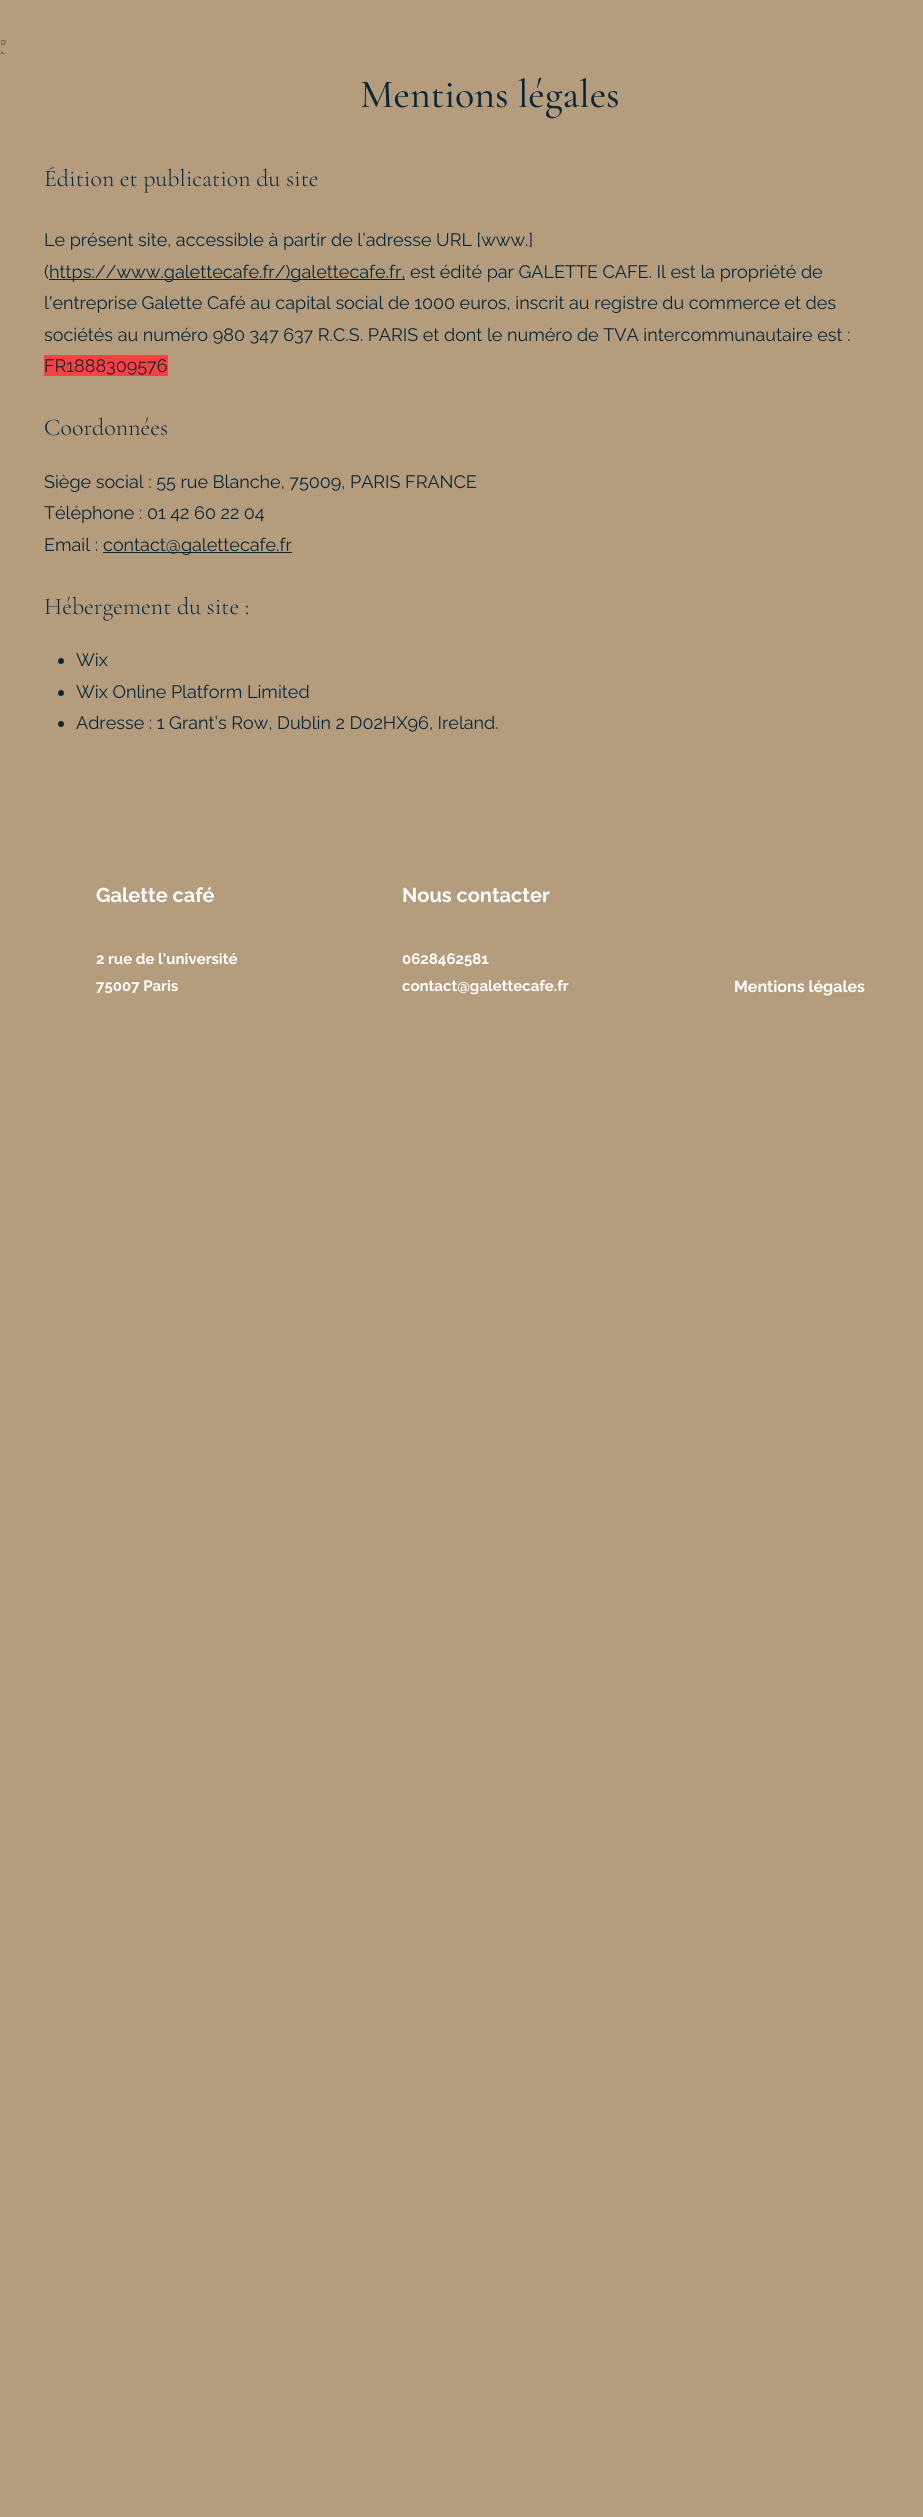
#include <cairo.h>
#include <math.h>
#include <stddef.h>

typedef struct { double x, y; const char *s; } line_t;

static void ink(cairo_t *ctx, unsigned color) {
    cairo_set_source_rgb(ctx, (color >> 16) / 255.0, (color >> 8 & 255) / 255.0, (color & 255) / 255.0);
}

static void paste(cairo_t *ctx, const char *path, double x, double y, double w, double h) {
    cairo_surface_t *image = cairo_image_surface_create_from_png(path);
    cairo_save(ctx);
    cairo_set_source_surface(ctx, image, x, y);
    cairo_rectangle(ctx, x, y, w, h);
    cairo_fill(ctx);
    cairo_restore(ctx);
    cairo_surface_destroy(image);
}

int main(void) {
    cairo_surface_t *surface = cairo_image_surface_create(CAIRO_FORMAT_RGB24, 923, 2517);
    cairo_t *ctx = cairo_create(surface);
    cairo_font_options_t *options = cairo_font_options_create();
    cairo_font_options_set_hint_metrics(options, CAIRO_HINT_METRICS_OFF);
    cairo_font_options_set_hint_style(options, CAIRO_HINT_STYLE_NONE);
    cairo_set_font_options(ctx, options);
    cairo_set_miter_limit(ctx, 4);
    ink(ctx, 0xB59C7C);
    cairo_paint(ctx);
    paste(ctx, "media/1.png", 0, 40, 6, 15);
    cairo_select_font_face(ctx, "Cormorant Garamond Medium", CAIRO_FONT_SLANT_NORMAL, CAIRO_FONT_WEIGHT_NORMAL);
    cairo_set_font_size(ctx, 40);
    ink(ctx, 0x06273A);
    cairo_move_to(ctx, 360, 107);
    cairo_show_text(ctx, "Mentions légales");
    cairo_select_font_face(ctx, "Cormorant Garamond Light", CAIRO_FONT_SLANT_NORMAL, CAIRO_FONT_WEIGHT_NORMAL);
    cairo_set_font_size(ctx, 24);
    cairo_move_to(ctx, 44, 186);
    cairo_show_text(ctx, "Édition et publication du site");
    cairo_select_font_face(ctx, "Raleway", CAIRO_FONT_SLANT_NORMAL, CAIRO_FONT_WEIGHT_NORMAL);
    cairo_set_font_size(ctx, 18);
    cairo_move_to(ctx, 44, 246);
    cairo_show_text(ctx, "Le présent site, accessible à partir de l’adresse URL [www.]");
    cairo_move_to(ctx, 44, 278);
    cairo_show_text(ctx, "(");
    cairo_rectangle(ctx, 49, 279, 356, 1);
    cairo_fill(ctx);
    {
        static const line_t items[] = {
            {49, 278, "https://www.galettecafe.fr/)galettecafe.fr, est édité par GALETTE CAFE. Il est la propriété de"},
            {44, 309, "l'entreprise Galette Café au capital social de 1000 euros, inscrit au registre du commerce et des"},
            {44, 341, "sociétés au numéro 980 347 637 R.C.S. PARIS et dont le numéro de TVA intercommunautaire est :"},
        };
        for (size_t i = 0; i < sizeof items / sizeof *items; i++) {
            cairo_move_to(ctx, items[i].x, items[i].y);
            cairo_show_text(ctx, items[i].s);
        }
    }
    ink(ctx, 0xFF4040);
    cairo_rectangle(ctx, 44, 355, 124, 21);
    cairo_fill(ctx);
    ink(ctx, 0x06273A);
    cairo_move_to(ctx, 44, 372);
    cairo_show_text(ctx, "FR1888309576");
    cairo_select_font_face(ctx, "Cormorant Garamond Light", CAIRO_FONT_SLANT_NORMAL, CAIRO_FONT_WEIGHT_NORMAL);
    cairo_set_font_size(ctx, 24);
    cairo_move_to(ctx, 44, 435);
    cairo_show_text(ctx, "Coordonnées");
    cairo_select_font_face(ctx, "Raleway", CAIRO_FONT_SLANT_NORMAL, CAIRO_FONT_WEIGHT_NORMAL);
    cairo_set_font_size(ctx, 18);
    {
        static const line_t items[] = {
            {44, 488, "Siège social : 55 rue Blanche, 75009, PARIS FRANCE"},
            {44, 519, "Téléphone : 01 42 60 22 04"},
            {44, 551, "Email :"},
        };
        for (size_t i = 0; i < sizeof items / sizeof *items; i++) {
            cairo_move_to(ctx, items[i].x, items[i].y);
            cairo_show_text(ctx, items[i].s);
        }
    }
    cairo_rectangle(ctx, 103, 552, 189, 1);
    cairo_fill(ctx);
    cairo_move_to(ctx, 103, 551);
    cairo_show_text(ctx, "contact@galettecafe.fr");
    cairo_select_font_face(ctx, "Cormorant Garamond Light", CAIRO_FONT_SLANT_NORMAL, CAIRO_FONT_WEIGHT_NORMAL);
    cairo_set_font_size(ctx, 24);
    cairo_move_to(ctx, 44, 614);
    cairo_show_text(ctx, "Hébergement du site :");
    cairo_new_path(ctx);
    cairo_arc(ctx, 61, 661, 3, 0, 2 * M_PI);
    cairo_fill(ctx);
    cairo_select_font_face(ctx, "Raleway", CAIRO_FONT_SLANT_NORMAL, CAIRO_FONT_WEIGHT_NORMAL);
    cairo_set_font_size(ctx, 18);
    cairo_move_to(ctx, 76, 666);
    cairo_show_text(ctx, "Wix");
    cairo_new_path(ctx);
    cairo_arc(ctx, 61, 693, 3, 0, 2 * M_PI);
    cairo_fill(ctx);
    cairo_move_to(ctx, 76, 698);
    cairo_show_text(ctx, "Wix Online Platform Limited");
    cairo_new_path(ctx);
    cairo_arc(ctx, 61, 724, 3, 0, 2 * M_PI);
    cairo_fill(ctx);
    cairo_move_to(ctx, 76, 729);
    cairo_show_text(ctx, "Adresse : 1 Grant’s Row, Dublin 2 D02HX96, Ireland.");
    cairo_select_font_face(ctx, "Raleway", CAIRO_FONT_SLANT_NORMAL, CAIRO_FONT_WEIGHT_BOLD);
    cairo_set_font_size(ctx, 20);
    ink(ctx, 0xFFFFFF);
    cairo_move_to(ctx, 96, 902);
    cairo_show_text(ctx, "Galette café");
    cairo_set_font_size(ctx, 15);
    cairo_move_to(ctx, 96, 964);
    cairo_show_text(ctx, "2 rue de l'université");
    cairo_move_to(ctx, 96, 991);
    cairo_show_text(ctx, "75007 Paris");
    cairo_set_font_size(ctx, 20);
    cairo_move_to(ctx, 402, 902);
    cairo_show_text(ctx, "Nous contacter");
    cairo_set_font_size(ctx, 15);
    cairo_move_to(ctx, 402, 964);
    cairo_show_text(ctx, "0628462581");
    cairo_move_to(ctx, 402, 991);
    cairo_show_text(ctx, "contact@galettecafe.fr");
    cairo_set_font_size(ctx, 16);
    cairo_move_to(ctx, 734, 992);
    cairo_show_text(ctx, "Mentions légales");
    cairo_surface_write_to_png(surface, "image.png");
    cairo_font_options_destroy(options);
    cairo_destroy(ctx);
    cairo_surface_destroy(surface);
    return 0;
}
